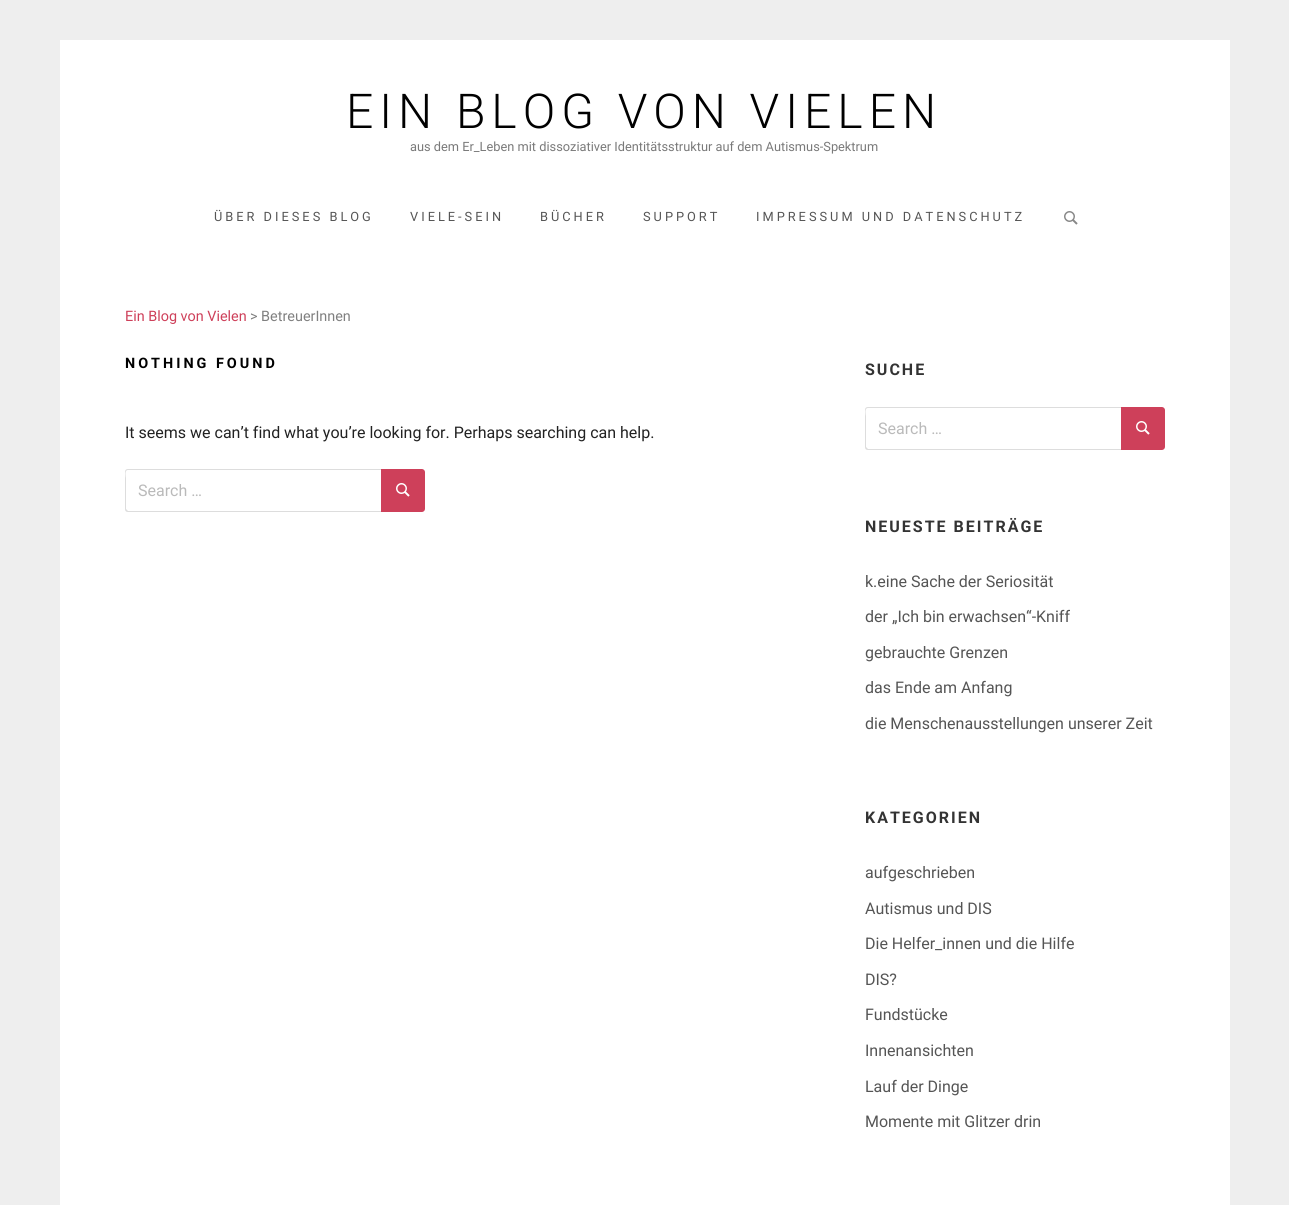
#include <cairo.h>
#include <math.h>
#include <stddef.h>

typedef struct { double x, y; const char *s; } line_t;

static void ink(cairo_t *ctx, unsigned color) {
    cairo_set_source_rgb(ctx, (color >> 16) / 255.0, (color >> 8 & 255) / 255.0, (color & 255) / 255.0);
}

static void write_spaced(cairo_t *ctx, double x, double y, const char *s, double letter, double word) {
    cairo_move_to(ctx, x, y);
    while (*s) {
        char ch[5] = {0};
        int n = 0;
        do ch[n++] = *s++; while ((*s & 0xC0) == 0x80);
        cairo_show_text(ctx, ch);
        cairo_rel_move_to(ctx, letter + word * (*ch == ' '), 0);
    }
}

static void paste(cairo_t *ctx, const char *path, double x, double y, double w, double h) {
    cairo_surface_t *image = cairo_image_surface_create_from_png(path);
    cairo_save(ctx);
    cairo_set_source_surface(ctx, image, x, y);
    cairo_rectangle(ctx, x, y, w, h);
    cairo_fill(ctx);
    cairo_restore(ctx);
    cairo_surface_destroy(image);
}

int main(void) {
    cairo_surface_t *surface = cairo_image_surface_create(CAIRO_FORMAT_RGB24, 1289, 1205);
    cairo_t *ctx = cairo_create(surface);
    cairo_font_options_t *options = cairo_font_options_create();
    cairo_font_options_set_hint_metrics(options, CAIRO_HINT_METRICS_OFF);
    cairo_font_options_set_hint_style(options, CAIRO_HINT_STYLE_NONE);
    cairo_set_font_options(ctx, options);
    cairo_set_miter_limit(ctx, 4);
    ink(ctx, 0xEEEEEE);
    cairo_paint(ctx);
    ink(ctx, 0xFFFFFF);
    cairo_rectangle(ctx, 60, 40, 1170, 1165);
    cairo_fill(ctx);
    cairo_select_font_face(ctx, "Roboto Light", CAIRO_FONT_SLANT_NORMAL, CAIRO_FONT_WEIGHT_NORMAL);
    cairo_set_font_size(ctx, 48);
    ink(ctx, 0x000000);
    write_spaced(ctx, 346, 128, "EIN BLOG VON VIELEN", 6, 0);
    cairo_select_font_face(ctx, "Roboto", CAIRO_FONT_SLANT_NORMAL, CAIRO_FONT_WEIGHT_NORMAL);
    cairo_set_font_size(ctx, 12.8);
    ink(ctx, 0x7A7A7A);
    cairo_move_to(ctx, 410, 151);
    cairo_show_text(ctx, "aus dem Er_Leben mit dissoziativer Identitätsstruktur auf dem Autismus-Spektrum");
    ink(ctx, 0x555555);
    {
        static const line_t items[] = {
            {214, 221, "ÜBER DIESES BLOG"},
            {410, 221, "VIELE-SEIN"},
            {540, 221, "BÜCHER"},
            {643, 221, "SUPPORT"},
            {756, 221, "IMPRESSUM UND DATENSCHUTZ"},
        };
        for (size_t i = 0; i < sizeof items / sizeof *items; i++) {
            write_spaced(ctx, items[i].x, items[i].y, items[i].s, 3, 0);
        }
    }
    paste(ctx, "media/1.png", 1064, 211, 14, 14);
    cairo_set_font_size(ctx, 14.4);
    ink(ctx, 0xCE405A);
    cairo_move_to(ctx, 125, 321);
    cairo_show_text(ctx, "Ein Blog von Vielen");
    ink(ctx, 0x808080);
    cairo_move_to(ctx, 250, 321);
    cairo_show_text(ctx, "> BetreuerInnen");
    cairo_select_font_face(ctx, "Roboto", CAIRO_FONT_SLANT_NORMAL, CAIRO_FONT_WEIGHT_BOLD);
    ink(ctx, 0x000000);
    write_spaced(ctx, 125, 368, "NOTHING FOUND", 3, 0);
    cairo_select_font_face(ctx, "Roboto", CAIRO_FONT_SLANT_NORMAL, CAIRO_FONT_WEIGHT_NORMAL);
    cairo_set_font_size(ctx, 16);
    ink(ctx, 0x222222);
    cairo_move_to(ctx, 125, 438);
    cairo_show_text(ctx, "It seems we can’t find what you’re looking for. Perhaps searching can help.");
    ink(ctx, 0xDDDDDD);
    cairo_set_fill_rule(ctx, CAIRO_FILL_RULE_EVEN_ODD);
    cairo_new_path(ctx);
    cairo_move_to(ctx, 128, 469);
    cairo_line_to(ctx, 381, 469);
    cairo_line_to(ctx, 381, 512);
    cairo_line_to(ctx, 128, 512);
    cairo_curve_to(ctx, 126, 512, 125, 511, 125, 509);
    cairo_line_to(ctx, 125, 472);
    cairo_curve_to(ctx, 125, 470, 126, 469, 128, 469);
    cairo_close_path(ctx);
    cairo_move_to(ctx, 128, 470);
    cairo_line_to(ctx, 381, 470);
    cairo_line_to(ctx, 381, 511);
    cairo_line_to(ctx, 128, 511);
    cairo_line_to(ctx, 126, 509);
    cairo_line_to(ctx, 126, 478);
    cairo_curve_to(ctx, 126, 478, 124, 470, 128, 470);
    cairo_close_path(ctx);
    cairo_fill(ctx);
    ink(ctx, 0xBABABA);
    cairo_move_to(ctx, 138, 496);
    cairo_show_text(ctx, "Search …");
    ink(ctx, 0xCE405A);
    cairo_new_path(ctx);
    cairo_move_to(ctx, 381, 469);
    cairo_line_to(ctx, 422, 469);
    cairo_curve_to(ctx, 423.5, 469, 425, 470.5, 425, 472);
    cairo_line_to(ctx, 425, 509);
    cairo_curve_to(ctx, 425, 510.5, 423.5, 512, 422, 512);
    cairo_line_to(ctx, 381, 512);
    cairo_close_path(ctx);
    cairo_fill(ctx);
    paste(ctx, "media/2.png", 396, 483, 14, 14);
    cairo_select_font_face(ctx, "Roboto", CAIRO_FONT_SLANT_NORMAL, CAIRO_FONT_WEIGHT_BOLD);
    ink(ctx, 0x333333);
    write_spaced(ctx, 865, 375, "SUCHE", 2, 0);
    ink(ctx, 0xDDDDDD);
    cairo_new_path(ctx);
    cairo_move_to(ctx, 868, 407);
    cairo_line_to(ctx, 1121, 407);
    cairo_line_to(ctx, 1121, 450);
    cairo_line_to(ctx, 868, 450);
    cairo_curve_to(ctx, 866, 450, 865, 449, 865, 447);
    cairo_line_to(ctx, 865, 410);
    cairo_curve_to(ctx, 865, 408, 866, 407, 868, 407);
    cairo_close_path(ctx);
    cairo_move_to(ctx, 868, 408);
    cairo_line_to(ctx, 1121, 408);
    cairo_line_to(ctx, 1121, 449);
    cairo_line_to(ctx, 868, 449);
    cairo_line_to(ctx, 866, 447);
    cairo_line_to(ctx, 866, 416);
    cairo_curve_to(ctx, 866, 416, 864, 408, 868, 408);
    cairo_close_path(ctx);
    cairo_fill(ctx);
    cairo_select_font_face(ctx, "Roboto", CAIRO_FONT_SLANT_NORMAL, CAIRO_FONT_WEIGHT_NORMAL);
    ink(ctx, 0xBABABA);
    cairo_move_to(ctx, 878, 434);
    cairo_show_text(ctx, "Search …");
    ink(ctx, 0xCE405A);
    cairo_new_path(ctx);
    cairo_move_to(ctx, 1121, 407);
    cairo_line_to(ctx, 1162, 407);
    cairo_curve_to(ctx, 1163.5, 407, 1165, 408.5, 1165, 410);
    cairo_line_to(ctx, 1165, 447);
    cairo_curve_to(ctx, 1165, 448.5, 1163.5, 450, 1162, 450);
    cairo_line_to(ctx, 1121, 450);
    cairo_close_path(ctx);
    cairo_fill(ctx);
    paste(ctx, "media/2.png", 1136, 421, 14, 14);
    cairo_select_font_face(ctx, "Roboto", CAIRO_FONT_SLANT_NORMAL, CAIRO_FONT_WEIGHT_BOLD);
    ink(ctx, 0x333333);
    write_spaced(ctx, 865, 532, "NEUESTE BEITRÄGE", 2, 0);
    cairo_select_font_face(ctx, "Roboto", CAIRO_FONT_SLANT_NORMAL, CAIRO_FONT_WEIGHT_NORMAL);
    ink(ctx, 0x555555);
    {
        static const line_t items[] = {
            {865, 587, "k.eine Sache der Seriosität"},
            {865, 622, "der „Ich bin erwachsen“-Kniff"},
            {865, 658, "gebrauchte Grenzen"},
            {865, 693, "das Ende am Anfang"},
            {865, 729, "die Menschenausstellungen unserer Zeit"},
        };
        for (size_t i = 0; i < sizeof items / sizeof *items; i++) {
            cairo_move_to(ctx, items[i].x, items[i].y);
            cairo_show_text(ctx, items[i].s);
        }
    }
    cairo_select_font_face(ctx, "Roboto", CAIRO_FONT_SLANT_NORMAL, CAIRO_FONT_WEIGHT_BOLD);
    ink(ctx, 0x333333);
    write_spaced(ctx, 865, 823, "KATEGORIEN", 2, 0);
    cairo_select_font_face(ctx, "Roboto", CAIRO_FONT_SLANT_NORMAL, CAIRO_FONT_WEIGHT_NORMAL);
    ink(ctx, 0x555555);
    {
        static const line_t items[] = {
            {865, 878, "aufgeschrieben"},
            {865, 914, "Autismus und DIS"},
            {865, 949, "Die Helfer_innen und die Hilfe"},
            {865, 985, "DIS?"},
            {865, 1020, "Fundstücke"},
            {865, 1056, "Innenansichten"},
            {865, 1092, "Lauf der Dinge"},
            {865, 1127, "Momente mit Glitzer drin"},
        };
        for (size_t i = 0; i < sizeof items / sizeof *items; i++) {
            cairo_move_to(ctx, items[i].x, items[i].y);
            cairo_show_text(ctx, items[i].s);
        }
    }
    cairo_surface_write_to_png(surface, "image.png");
    cairo_font_options_destroy(options);
    cairo_destroy(ctx);
    cairo_surface_destroy(surface);
    return 0;
}
